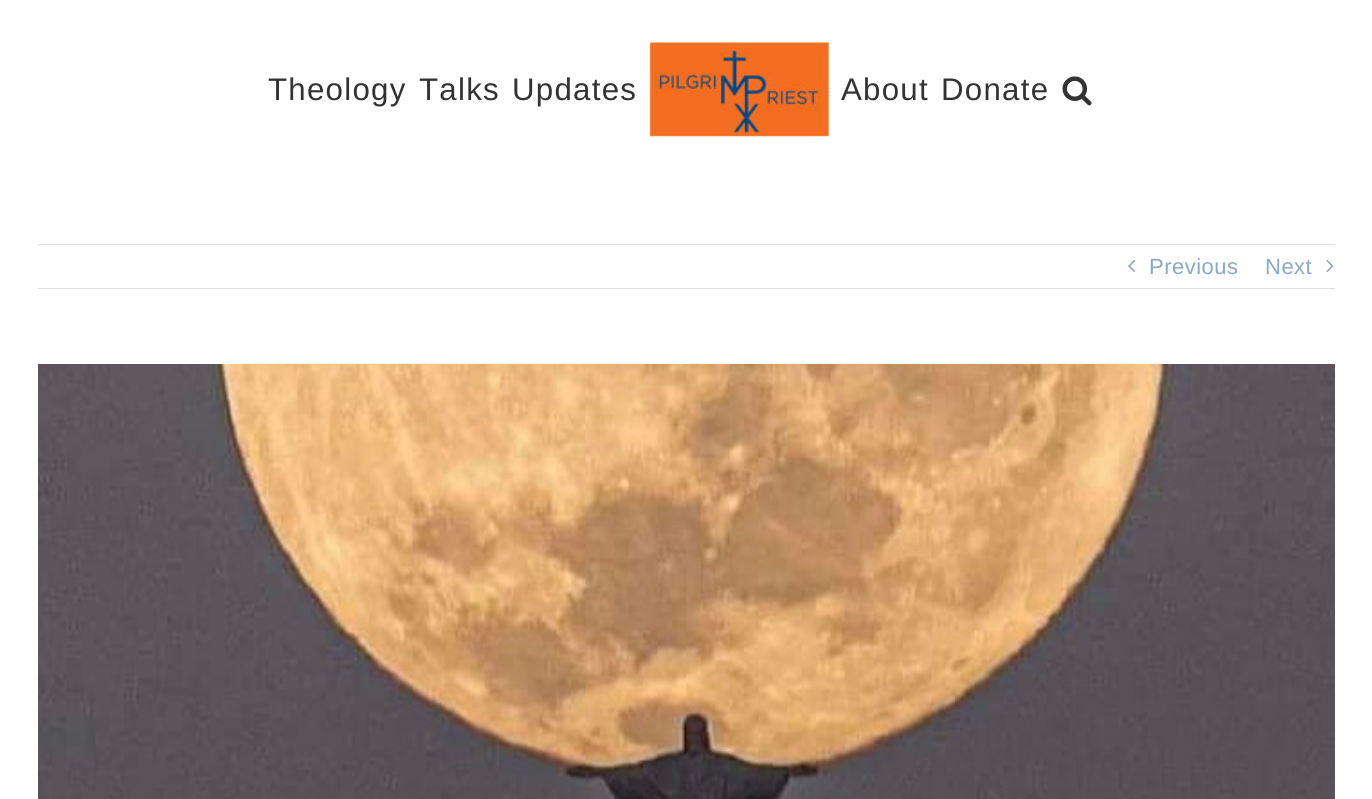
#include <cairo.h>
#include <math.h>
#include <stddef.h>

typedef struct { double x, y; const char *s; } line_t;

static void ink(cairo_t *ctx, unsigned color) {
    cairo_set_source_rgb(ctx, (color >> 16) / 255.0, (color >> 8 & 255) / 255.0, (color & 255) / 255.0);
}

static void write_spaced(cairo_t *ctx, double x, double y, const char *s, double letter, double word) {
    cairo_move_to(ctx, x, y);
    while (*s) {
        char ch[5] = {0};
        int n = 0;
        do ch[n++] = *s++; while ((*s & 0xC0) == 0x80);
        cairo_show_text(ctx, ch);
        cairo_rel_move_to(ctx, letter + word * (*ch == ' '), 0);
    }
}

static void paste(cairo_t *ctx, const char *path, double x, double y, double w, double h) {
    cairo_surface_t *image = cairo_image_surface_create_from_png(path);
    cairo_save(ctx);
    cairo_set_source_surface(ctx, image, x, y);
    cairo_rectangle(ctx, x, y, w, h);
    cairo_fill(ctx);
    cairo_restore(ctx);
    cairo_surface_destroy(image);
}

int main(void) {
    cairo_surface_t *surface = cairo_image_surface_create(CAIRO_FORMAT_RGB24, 1372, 799);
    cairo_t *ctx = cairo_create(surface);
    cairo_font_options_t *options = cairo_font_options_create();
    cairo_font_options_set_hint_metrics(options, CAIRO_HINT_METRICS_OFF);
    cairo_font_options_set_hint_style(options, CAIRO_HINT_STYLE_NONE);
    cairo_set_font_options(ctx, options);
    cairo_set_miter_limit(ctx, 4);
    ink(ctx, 0xFFFFFF);
    cairo_paint(ctx);
    cairo_select_font_face(ctx, "Liberation Sans", CAIRO_FONT_SLANT_NORMAL, CAIRO_FONT_WEIGHT_NORMAL);
    cairo_set_font_size(ctx, 31.25);
    ink(ctx, 0x333333);
    {
        static const line_t items[] = {
            {268, 100, "Theology"},
            {419, 100, "Talks"},
            {512, 100, "Updates"},
        };
        for (size_t i = 0; i < sizeof items / sizeof *items; i++) {
            write_spaced(ctx, items[i].x, items[i].y, items[i].s, 1.25, 0);
        }
    }
    paste(ctx, "media/1.png", 649, 42, 180, 95);
    write_spaced(ctx, 841, 100, "About", 1.25, 0);
    write_spaced(ctx, 941, 100, "Donate", 1.25, 0);
    paste(ctx, "media/2.png", 1062, 76, 30, 30);
    ink(ctx, 0xE0DEDE);
    cairo_rectangle(ctx, 38, 244, 1297, 1);
    cairo_fill(ctx);
    cairo_rectangle(ctx, 38, 288, 1297, 1);
    cairo_fill(ctx);
    paste(ctx, "media/3.png", 1128, 260, 8, 13);
    cairo_set_font_size(ctx, 22);
    ink(ctx, 0x8BA7C9);
    write_spaced(ctx, 1149, 274, "Previous", 0.5, 0);
    write_spaced(ctx, 1265, 274, "Next", 0.5, 0);
    paste(ctx, "media/4.png", 1326, 260, 8, 13);
    paste(ctx, "media/5.png", 38, 364, 1297, 435);
    cairo_surface_write_to_png(surface, "image.png");
    cairo_font_options_destroy(options);
    cairo_destroy(ctx);
    cairo_surface_destroy(surface);
    return 0;
}
